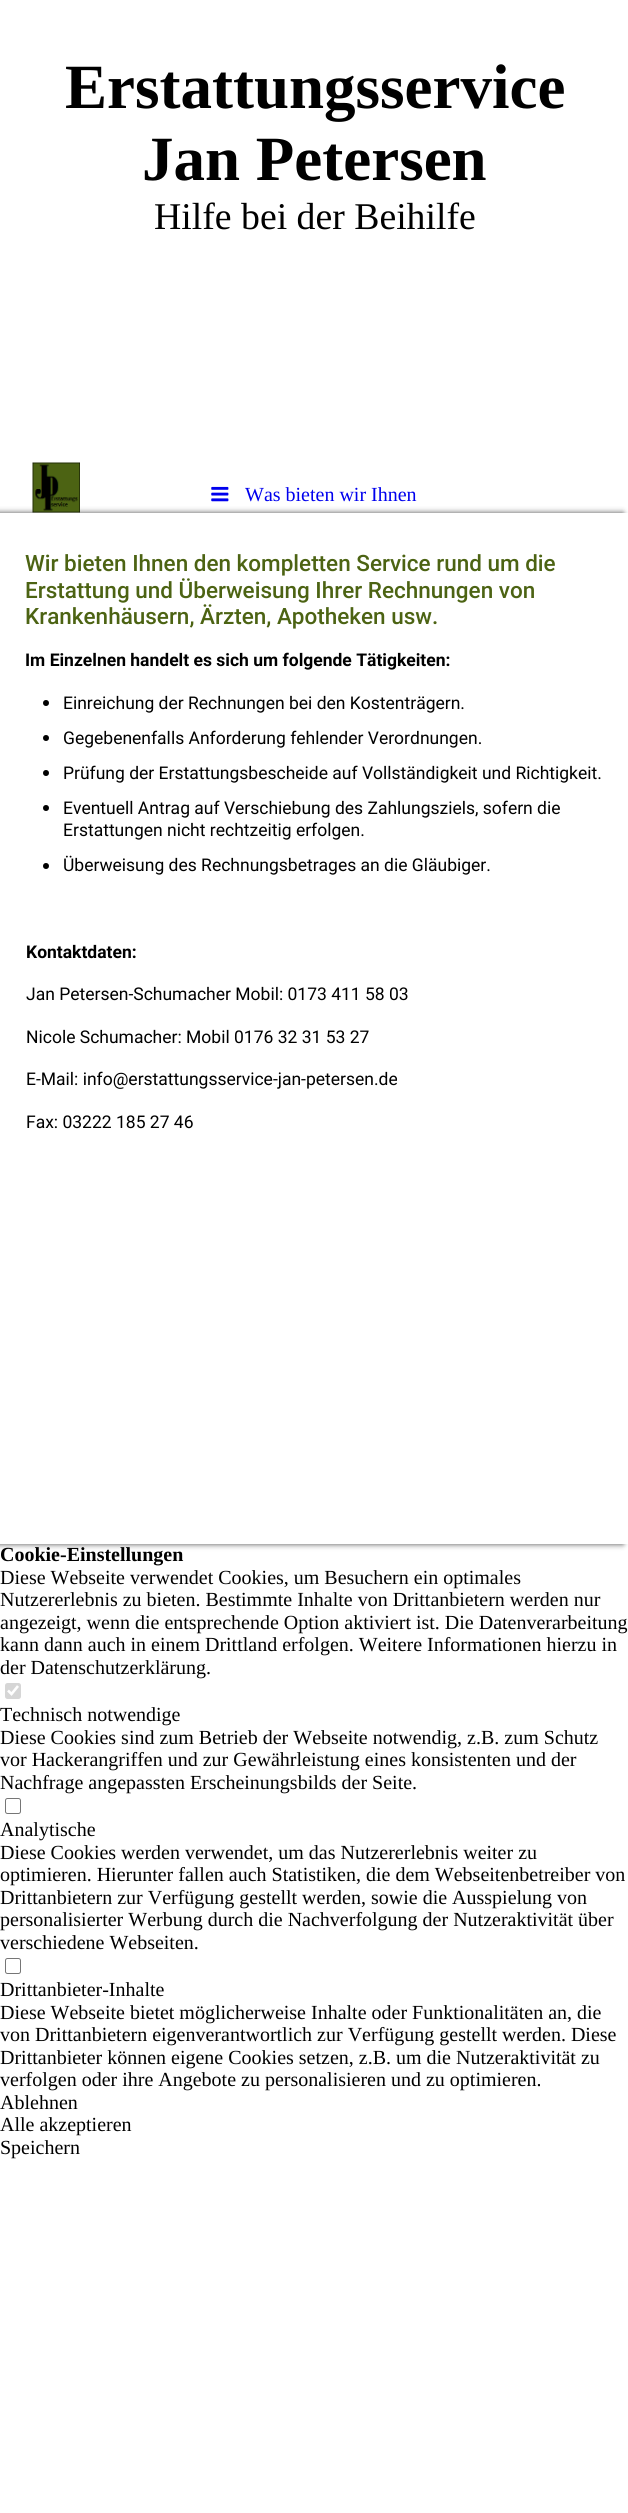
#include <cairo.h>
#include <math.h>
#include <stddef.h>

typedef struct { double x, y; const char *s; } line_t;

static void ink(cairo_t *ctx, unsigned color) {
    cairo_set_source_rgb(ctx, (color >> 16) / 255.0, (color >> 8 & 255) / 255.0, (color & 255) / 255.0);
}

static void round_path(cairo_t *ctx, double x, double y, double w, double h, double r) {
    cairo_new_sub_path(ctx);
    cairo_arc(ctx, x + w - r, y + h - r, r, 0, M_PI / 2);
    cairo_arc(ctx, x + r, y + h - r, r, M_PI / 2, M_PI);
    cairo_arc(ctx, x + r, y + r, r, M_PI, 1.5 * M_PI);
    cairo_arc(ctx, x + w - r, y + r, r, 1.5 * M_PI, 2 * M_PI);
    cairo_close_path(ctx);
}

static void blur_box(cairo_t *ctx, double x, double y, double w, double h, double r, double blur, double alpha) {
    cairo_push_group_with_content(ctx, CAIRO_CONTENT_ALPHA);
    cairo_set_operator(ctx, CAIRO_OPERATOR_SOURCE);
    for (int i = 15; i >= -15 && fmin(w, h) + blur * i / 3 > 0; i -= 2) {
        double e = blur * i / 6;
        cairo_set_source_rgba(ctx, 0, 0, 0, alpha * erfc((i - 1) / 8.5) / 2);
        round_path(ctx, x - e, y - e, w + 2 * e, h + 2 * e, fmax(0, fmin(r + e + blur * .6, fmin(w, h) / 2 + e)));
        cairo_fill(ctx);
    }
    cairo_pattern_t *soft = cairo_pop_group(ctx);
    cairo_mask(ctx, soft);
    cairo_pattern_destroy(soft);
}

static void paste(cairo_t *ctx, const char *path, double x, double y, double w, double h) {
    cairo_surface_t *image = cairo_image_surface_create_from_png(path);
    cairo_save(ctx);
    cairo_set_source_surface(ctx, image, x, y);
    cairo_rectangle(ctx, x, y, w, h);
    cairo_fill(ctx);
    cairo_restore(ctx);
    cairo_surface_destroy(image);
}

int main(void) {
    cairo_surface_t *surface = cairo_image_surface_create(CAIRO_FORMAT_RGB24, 628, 2513);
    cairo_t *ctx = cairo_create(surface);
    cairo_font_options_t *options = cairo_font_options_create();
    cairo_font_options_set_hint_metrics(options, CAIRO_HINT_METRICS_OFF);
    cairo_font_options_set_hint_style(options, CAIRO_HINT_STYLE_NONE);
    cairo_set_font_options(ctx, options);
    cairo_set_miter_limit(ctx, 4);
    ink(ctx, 0xFFFFFF);
    cairo_paint(ctx);
    cairo_select_font_face(ctx, "Liberation Serif", CAIRO_FONT_SLANT_NORMAL, CAIRO_FONT_WEIGHT_BOLD);
    cairo_set_font_size(ctx, 63);
    ink(ctx, 0x000000);
    cairo_move_to(ctx, 65, 108);
    cairo_show_text(ctx, "Erstattungsservice");
    cairo_move_to(ctx, 142, 180);
    cairo_show_text(ctx, "Jan Petersen");
    cairo_select_font_face(ctx, "Liberation Serif", CAIRO_FONT_SLANT_NORMAL, CAIRO_FONT_WEIGHT_NORMAL);
    cairo_set_font_size(ctx, 37.75);
    cairo_move_to(ctx, 154, 229);
    cairo_show_text(ctx, "Hilfe bei der Beihilfe");
    cairo_save(ctx);
    cairo_set_fill_rule(ctx, CAIRO_FILL_RULE_EVEN_ODD);
    cairo_new_path(ctx);
    cairo_move_to(ctx, 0, 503);
    cairo_line_to(ctx, 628, 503);
    cairo_line_to(ctx, 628, 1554);
    cairo_line_to(ctx, 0, 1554);
    cairo_close_path(ctx);
    cairo_move_to(ctx, 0, 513);
    cairo_line_to(ctx, 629, 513);
    cairo_line_to(ctx, 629, 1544);
    cairo_line_to(ctx, 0, 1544);
    cairo_close_path(ctx);
    cairo_clip(ctx);
    ink(ctx, 0x000000);
    blur_box(ctx, -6, 513, 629, 1031, 0, 3, 0.7);
    cairo_restore(ctx);
    paste(ctx, "media/1.png", 32, 462, 48, 51);
    paste(ctx, "media/2.png", 211, 486, 18, 16);
    cairo_set_font_size(ctx, 20);
    ink(ctx, 0x0000EE);
    cairo_move_to(ctx, 245, 501);
    cairo_show_text(ctx, "Was bieten wir Ihnen");
    cairo_select_font_face(ctx, "Roboto Medium", CAIRO_FONT_SLANT_NORMAL, CAIRO_FONT_WEIGHT_NORMAL);
    cairo_set_font_size(ctx, 22.5);
    ink(ctx, 0x4C6313);
    {
        static const line_t items[] = {
            {25, 571, "Wir bieten Ihnen den kompletten Service rund um die"},
            {25, 598, "Erstattung und Überweisung Ihrer Rechnungen von"},
            {25, 624, "Krankenhäusern, Ärzten, Apotheken usw."},
        };
        for (size_t i = 0; i < sizeof items / sizeof *items; i++) {
            cairo_move_to(ctx, items[i].x, items[i].y);
            cairo_show_text(ctx, items[i].s);
        }
    }
    cairo_select_font_face(ctx, "Roboto", CAIRO_FONT_SLANT_NORMAL, CAIRO_FONT_WEIGHT_BOLD);
    cairo_set_font_size(ctx, 17.5);
    ink(ctx, 0x000000);
    cairo_move_to(ctx, 25, 666);
    cairo_show_text(ctx, "Im Einzelnen handelt es sich um folgende Tätigkeiten:");
    cairo_new_path(ctx);
    cairo_arc(ctx, 46, 703, 3, 0, 2 * M_PI);
    cairo_fill(ctx);
    cairo_select_font_face(ctx, "Roboto", CAIRO_FONT_SLANT_NORMAL, CAIRO_FONT_WEIGHT_NORMAL);
    cairo_move_to(ctx, 63, 709);
    cairo_show_text(ctx, "Einreichung der Rechnungen bei den Kostenträgern.");
    cairo_new_path(ctx);
    cairo_arc(ctx, 46, 738, 3, 0, 2 * M_PI);
    cairo_fill(ctx);
    cairo_move_to(ctx, 63, 744);
    cairo_show_text(ctx, "Gegebenenfalls Anforderung fehlender Verordnungen.");
    cairo_new_path(ctx);
    cairo_arc(ctx, 46, 773, 3, 0, 2 * M_PI);
    cairo_fill(ctx);
    cairo_move_to(ctx, 63, 779);
    cairo_show_text(ctx, "Prüfung der Erstattungsbescheide auf Vollständigkeit und Richtigkeit.");
    cairo_new_path(ctx);
    cairo_arc(ctx, 46, 808, 3, 0, 2 * M_PI);
    cairo_fill(ctx);
    cairo_move_to(ctx, 63, 814);
    cairo_show_text(ctx, "Eventuell Antrag auf Verschiebung des Zahlungsziels, sofern die");
    cairo_move_to(ctx, 63, 836);
    cairo_show_text(ctx, "Erstattungen nicht rechtzeitig erfolgen.");
    cairo_new_path(ctx);
    cairo_arc(ctx, 46, 866, 3, 0, 2 * M_PI);
    cairo_fill(ctx);
    cairo_move_to(ctx, 63, 871);
    cairo_show_text(ctx, "Überweisung des Rechnungsbetrages an die Gläubiger.");
    cairo_select_font_face(ctx, "Roboto", CAIRO_FONT_SLANT_NORMAL, CAIRO_FONT_WEIGHT_BOLD);
    cairo_move_to(ctx, 26, 958);
    cairo_show_text(ctx, "Kontaktdaten:");
    cairo_select_font_face(ctx, "Roboto", CAIRO_FONT_SLANT_NORMAL, CAIRO_FONT_WEIGHT_NORMAL);
    {
        static const line_t items[] = {
            {26, 1000, "Jan Petersen-Schumacher Mobil: 0173 411 58 03"},
            {26, 1043, "Nicole Schumacher: Mobil 0176 32 31 53 27"},
            {26, 1085, "E-Mail: info@erstattungsservice-jan-petersen.de"},
            {26, 1128, "Fax: 03222 185 27 46"},
        };
        for (size_t i = 0; i < sizeof items / sizeof *items; i++) {
            cairo_move_to(ctx, items[i].x, items[i].y);
            cairo_show_text(ctx, items[i].s);
        }
    }
    cairo_select_font_face(ctx, "Liberation Serif", CAIRO_FONT_SLANT_NORMAL, CAIRO_FONT_WEIGHT_BOLD);
    cairo_set_font_size(ctx, 20);
    cairo_move_to(ctx, 0, 1561);
    cairo_show_text(ctx, "Cookie-Einstellungen");
    cairo_select_font_face(ctx, "Liberation Serif", CAIRO_FONT_SLANT_NORMAL, CAIRO_FONT_WEIGHT_NORMAL);
    {
        static const line_t items[] = {
            {0, 1584, "Diese Webseite verwendet Cookies, um Besuchern ein optimales"},
            {0, 1606, "Nutzererlebnis zu bieten. Bestimmte Inhalte von Drittanbietern werden nur"},
            {0, 1629, "angezeigt, wenn die entsprechende Option aktiviert ist. Die Datenverarbeitung"},
            {0, 1651, "kann dann auch in einem Drittland erfolgen. Weitere Informationen hierzu in"},
            {0, 1674, "der Datenschutzerklärung."},
        };
        for (size_t i = 0; i < sizeof items / sizeof *items; i++) {
            cairo_move_to(ctx, items[i].x, items[i].y);
            cairo_show_text(ctx, items[i].s);
        }
    }
    ink(ctx, 0xD6D6D6);
    round_path(ctx, 5, 1683, 16, 16, 2.5);
    cairo_fill(ctx);
    cairo_new_path(ctx);
    cairo_move_to(ctx, 8, 1690.5);
    cairo_line_to(ctx, 11.5, 1694);
    cairo_line_to(ctx, 18, 1686);
    ink(ctx, 0xFFFFFF);
    cairo_set_line_width(ctx, 2.6);
    cairo_stroke(ctx);
    ink(ctx, 0x000000);
    {
        static const line_t items[] = {
            {0, 1721, "Technisch notwendige"},
            {0, 1744, "Diese Cookies sind zum Betrieb der Webseite notwendig, z.B. zum Schutz"},
            {0, 1766, "vor Hackerangriffen und zur Gewährleistung eines konsistenten und der"},
            {0, 1789, "Nachfrage angepassten Erscheinungsbilds der Seite."},
        };
        for (size_t i = 0; i < sizeof items / sizeof *items; i++) {
            cairo_move_to(ctx, items[i].x, items[i].y);
            cairo_show_text(ctx, items[i].s);
        }
    }
    round_path(ctx, 5.5, 1798.5, 15, 15, 2);
    ink(ctx, 0x767676);
    cairo_set_line_width(ctx, 1);
    cairo_stroke(ctx);
    ink(ctx, 0x000000);
    {
        static const line_t items[] = {
            {0, 1836, "Analytische"},
            {0, 1859, "Diese Cookies werden verwendet, um das Nutzererlebnis weiter zu"},
            {0, 1881, "optimieren. Hierunter fallen auch Statistiken, die dem Webseitenbetreiber von"},
            {0, 1904, "Drittanbietern zur Verfügung gestellt werden, sowie die Ausspielung von"},
            {0, 1926, "personalisierter Werbung durch die Nachverfolgung der Nutzeraktivität über"},
            {0, 1949, "verschiedene Webseiten."},
        };
        for (size_t i = 0; i < sizeof items / sizeof *items; i++) {
            cairo_move_to(ctx, items[i].x, items[i].y);
            cairo_show_text(ctx, items[i].s);
        }
    }
    round_path(ctx, 5.5, 1958.5, 15, 15, 2);
    ink(ctx, 0x767676);
    cairo_stroke(ctx);
    ink(ctx, 0x000000);
    {
        static const line_t items[] = {
            {0, 1996, "Drittanbieter-Inhalte"},
            {0, 2019, "Diese Webseite bietet möglicherweise Inhalte oder Funktionalitäten an, die"},
            {0, 2041, "von Drittanbietern eigenverantwortlich zur Verfügung gestellt werden. Diese"},
            {0, 2064, "Drittanbieter können eigene Cookies setzen, z.B. um die Nutzeraktivität zu"},
            {0, 2086, "verfolgen oder ihre Angebote zu personalisieren und zu optimieren."},
            {0, 2109, "Ablehnen"},
            {0, 2131, "Alle akzeptieren"},
            {0, 2154, "Speichern"},
        };
        for (size_t i = 0; i < sizeof items / sizeof *items; i++) {
            cairo_move_to(ctx, items[i].x, items[i].y);
            cairo_show_text(ctx, items[i].s);
        }
    }
    cairo_surface_write_to_png(surface, "image.png");
    cairo_font_options_destroy(options);
    cairo_destroy(ctx);
    cairo_surface_destroy(surface);
    return 0;
}
